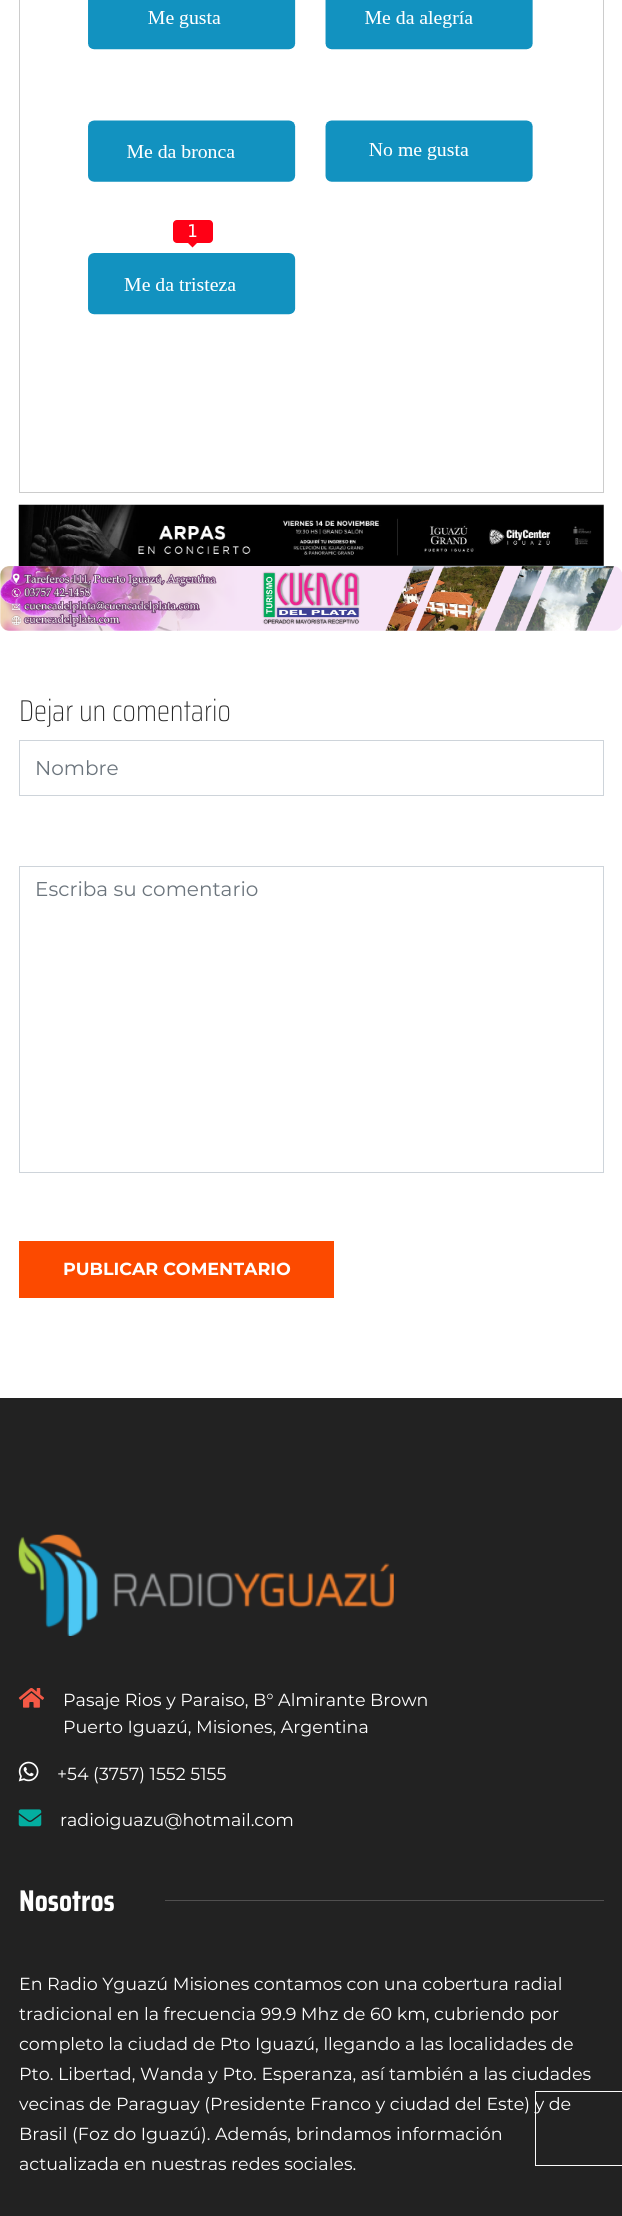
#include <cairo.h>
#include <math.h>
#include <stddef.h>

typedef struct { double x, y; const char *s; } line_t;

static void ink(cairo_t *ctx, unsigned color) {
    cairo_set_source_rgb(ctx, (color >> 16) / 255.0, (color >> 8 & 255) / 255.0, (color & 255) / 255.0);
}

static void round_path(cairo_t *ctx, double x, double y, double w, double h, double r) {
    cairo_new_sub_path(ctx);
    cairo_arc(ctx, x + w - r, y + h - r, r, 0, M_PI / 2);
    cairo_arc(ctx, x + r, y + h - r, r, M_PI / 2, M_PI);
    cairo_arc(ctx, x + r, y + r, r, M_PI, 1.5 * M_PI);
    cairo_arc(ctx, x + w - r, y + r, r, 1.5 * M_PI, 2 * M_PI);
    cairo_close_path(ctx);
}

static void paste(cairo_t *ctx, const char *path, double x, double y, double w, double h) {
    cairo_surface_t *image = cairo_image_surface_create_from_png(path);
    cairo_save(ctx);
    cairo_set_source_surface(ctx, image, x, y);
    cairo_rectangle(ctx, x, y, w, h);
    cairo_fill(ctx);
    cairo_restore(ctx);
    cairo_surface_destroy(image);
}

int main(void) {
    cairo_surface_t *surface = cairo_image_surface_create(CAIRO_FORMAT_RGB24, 622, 2216);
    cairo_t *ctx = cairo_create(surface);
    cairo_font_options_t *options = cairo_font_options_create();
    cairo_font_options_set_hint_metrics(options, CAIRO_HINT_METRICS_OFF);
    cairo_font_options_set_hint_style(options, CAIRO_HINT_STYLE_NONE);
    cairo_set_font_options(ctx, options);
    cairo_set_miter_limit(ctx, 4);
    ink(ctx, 0xFFFFFF);
    cairo_paint(ctx);
    cairo_rectangle(ctx, 19.5, -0.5, 584, 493);
    ink(ctx, 0xCCCCCC);
    cairo_set_line_width(ctx, 1);
    cairo_stroke(ctx);
    paste(ctx, "media/1.png", 88, 0, 208, 50);
    paste(ctx, "media/2.png", 325, 0, 208, 50);
    paste(ctx, "media/3.png", 88, 120, 208, 62);
    paste(ctx, "media/4.png", 325, 120, 208, 62);
    ink(ctx, 0xFF0015);
    round_path(ctx, 173, 220, 40, 23, 4);
    cairo_fill(ctx);
    cairo_select_font_face(ctx, "DejaVu Sans Mono", CAIRO_FONT_SLANT_NORMAL, CAIRO_FONT_WEIGHT_NORMAL);
    cairo_set_font_size(ctx, 17.5);
    ink(ctx, 0xFFFFFF);
    cairo_move_to(ctx, 187, 237);
    cairo_show_text(ctx, "1");
    ink(ctx, 0xFF0015);
    cairo_new_path(ctx);
    cairo_move_to(ctx, 186, 241);
    cairo_line_to(ctx, 199, 241);
    cairo_line_to(ctx, 192.5, 247.5);
    cairo_close_path(ctx);
    cairo_fill(ctx);
    paste(ctx, "media/5.png", 88, 253, 208, 62);
    paste(ctx, "media/6.png", 18, 504, 586, 62);
    paste(ctx, "media/7.png", 0, 566, 622, 65);
    cairo_select_font_face(ctx, "Saira Condensed Thin", CAIRO_FONT_SLANT_NORMAL, CAIRO_FONT_WEIGHT_NORMAL);
    cairo_set_font_size(ctx, 30);
    ink(ctx, 0x222222);
    cairo_move_to(ctx, 19, 721);
    cairo_show_text(ctx, "Dejar un comentario");
    cairo_rectangle(ctx, 19.5, 740.5, 584, 55);
    ink(ctx, 0xCED4DA);
    cairo_stroke(ctx);
    cairo_select_font_face(ctx, "Montserrat", CAIRO_FONT_SLANT_NORMAL, CAIRO_FONT_WEIGHT_NORMAL);
    cairo_set_font_size(ctx, 20);
    ink(ctx, 0x6C757D);
    cairo_move_to(ctx, 35, 775);
    cairo_show_text(ctx, "Nombre");
    cairo_rectangle(ctx, 19.5, 866.5, 584, 306);
    ink(ctx, 0xCED4DA);
    cairo_stroke(ctx);
    ink(ctx, 0x6C757D);
    cairo_move_to(ctx, 35, 896);
    cairo_show_text(ctx, "Escriba su comentario");
    ink(ctx, 0xFC4A00);
    cairo_rectangle(ctx, 19, 1241, 315, 57);
    cairo_fill(ctx);
    cairo_select_font_face(ctx, "Montserrat", CAIRO_FONT_SLANT_NORMAL, CAIRO_FONT_WEIGHT_BOLD);
    cairo_set_font_size(ctx, 17.5);
    ink(ctx, 0xFFFFFF);
    cairo_move_to(ctx, 63, 1275);
    cairo_show_text(ctx, "PUBLICAR COMENTARIO");
    ink(ctx, 0x222222);
    cairo_rectangle(ctx, 0, 1398, 622, 818);
    cairo_fill(ctx);
    cairo_rectangle(ctx, 535.5, 2091.5, 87, 74);
    ink(ctx, 0xFBFBFB);
    cairo_stroke(ctx);
    paste(ctx, "media/8.png", 18, 1534, 376, 102);
    paste(ctx, "media/9.png", 18, 1688, 26, 20);
    cairo_select_font_face(ctx, "Montserrat", CAIRO_FONT_SLANT_NORMAL, CAIRO_FONT_WEIGHT_NORMAL);
    ink(ctx, 0xFFFFFF);
    cairo_move_to(ctx, 63, 1706);
    cairo_show_text(ctx, "Pasaje Rios y Paraiso, B° Almirante Brown");
    cairo_move_to(ctx, 63, 1733);
    cairo_show_text(ctx, "Puerto Iguazú, Misiones, Argentina");
    paste(ctx, "media/10.png", 18, 1761, 21, 21);
    cairo_move_to(ctx, 57, 1780);
    cairo_show_text(ctx, "+54 (3757) 1552 5155");
    paste(ctx, "media/11.png", 18, 1809, 24, 18);
    cairo_move_to(ctx, 60, 1826);
    cairo_show_text(ctx, "radioiguazu@hotmail.com");
    cairo_select_font_face(ctx, "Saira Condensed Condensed", CAIRO_FONT_SLANT_NORMAL, CAIRO_FONT_WEIGHT_BOLD);
    cairo_set_font_size(ctx, 30);
    cairo_move_to(ctx, 19, 1911);
    cairo_show_text(ctx, "Nosotros");
    ink(ctx, 0x504F4F);
    cairo_rectangle(ctx, 165, 1900, 439, 1);
    cairo_fill(ctx);
    cairo_select_font_face(ctx, "Montserrat", CAIRO_FONT_SLANT_NORMAL, CAIRO_FONT_WEIGHT_NORMAL);
    cairo_set_font_size(ctx, 17.5);
    ink(ctx, 0xFFFFFF);
    {
        static const line_t items[] = {
            {19, 1990, "En Radio Yguazú Misiones contamos con una cobertura radial"},
            {19, 2020, "tradicional en la frecuencia 99.9 Mhz de 60 km, cubriendo por"},
            {19, 2050, "completo la ciudad de Pto Iguazú, llegando a las localidades de"},
            {19, 2080, "Pto. Libertad, Wanda y Pto. Esperanza, así también a las ciudades"},
            {19, 2110, "vecinas de Paraguay (Presidente Franco y ciudad del Este) y de"},
            {19, 2140, "Brasil (Foz do Iguazú). Además, brindamos información"},
            {19, 2170, "actualizada en nuestras redes sociales."},
        };
        for (size_t i = 0; i < sizeof items / sizeof *items; i++) {
            cairo_move_to(ctx, items[i].x, items[i].y);
            cairo_show_text(ctx, items[i].s);
        }
    }
    cairo_surface_write_to_png(surface, "image.png");
    cairo_font_options_destroy(options);
    cairo_destroy(ctx);
    cairo_surface_destroy(surface);
    return 0;
}
